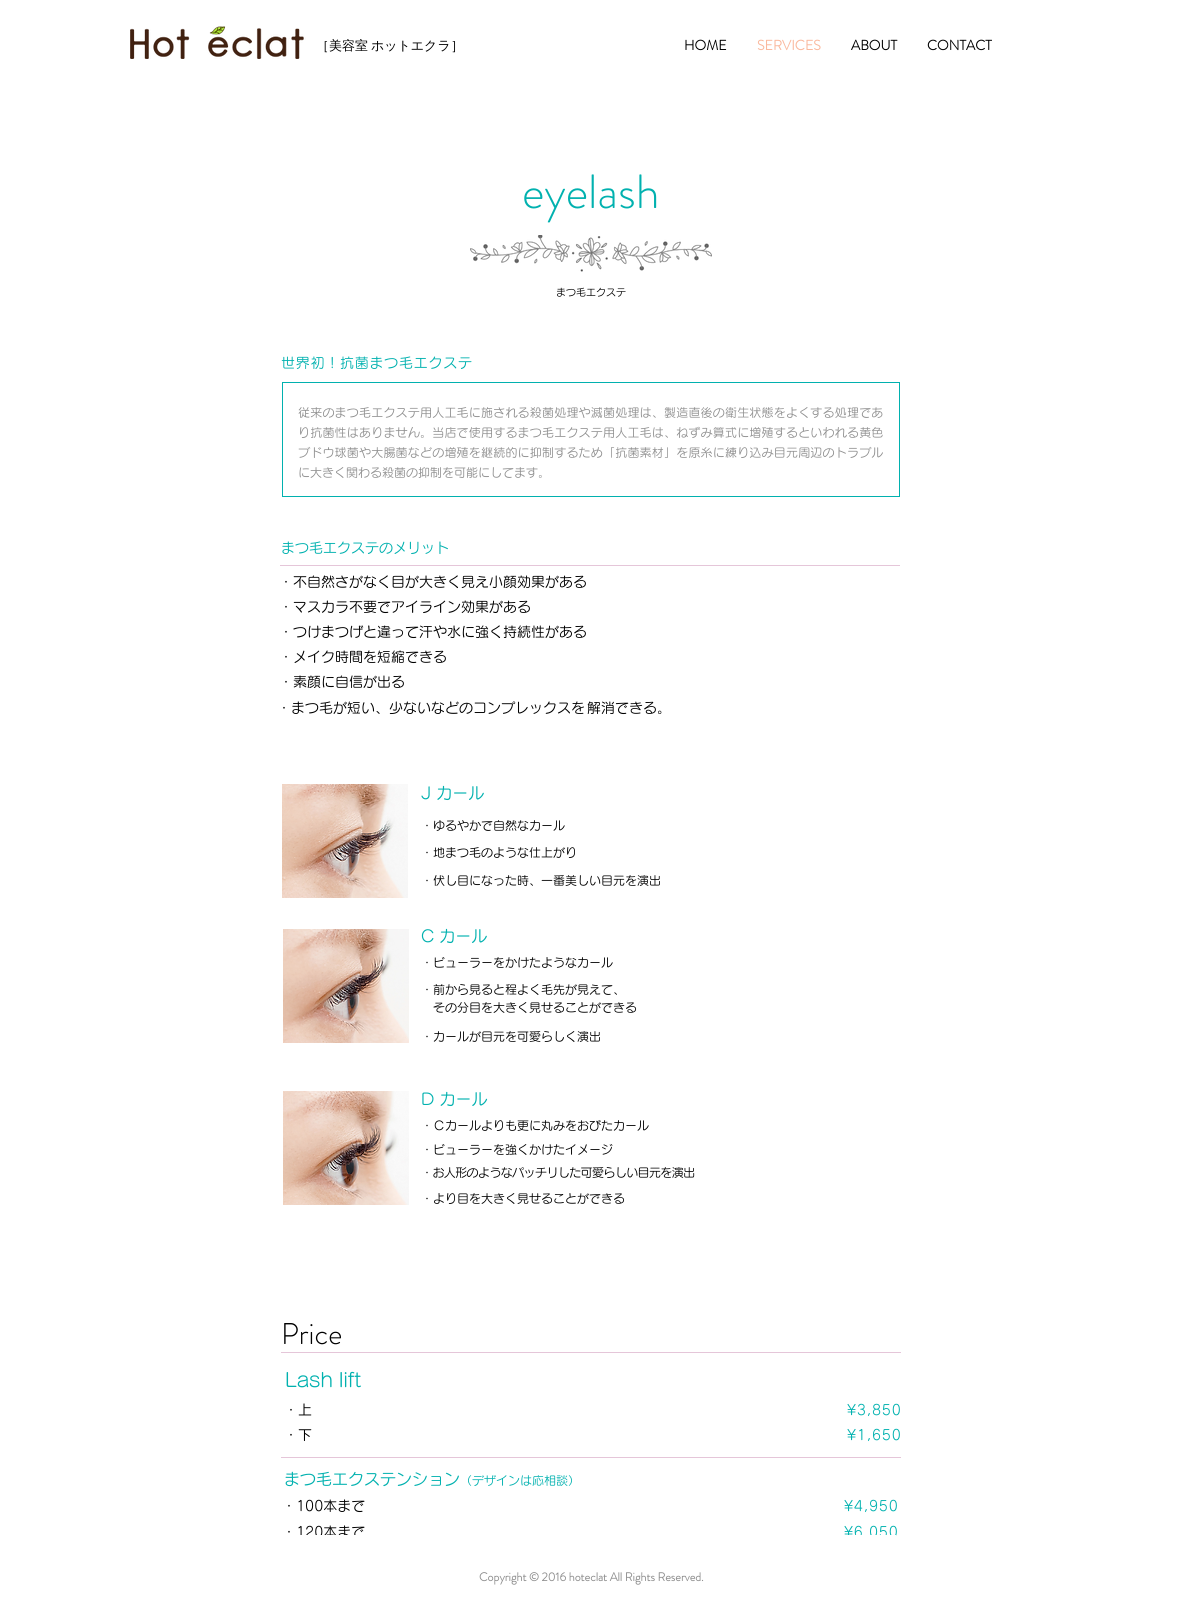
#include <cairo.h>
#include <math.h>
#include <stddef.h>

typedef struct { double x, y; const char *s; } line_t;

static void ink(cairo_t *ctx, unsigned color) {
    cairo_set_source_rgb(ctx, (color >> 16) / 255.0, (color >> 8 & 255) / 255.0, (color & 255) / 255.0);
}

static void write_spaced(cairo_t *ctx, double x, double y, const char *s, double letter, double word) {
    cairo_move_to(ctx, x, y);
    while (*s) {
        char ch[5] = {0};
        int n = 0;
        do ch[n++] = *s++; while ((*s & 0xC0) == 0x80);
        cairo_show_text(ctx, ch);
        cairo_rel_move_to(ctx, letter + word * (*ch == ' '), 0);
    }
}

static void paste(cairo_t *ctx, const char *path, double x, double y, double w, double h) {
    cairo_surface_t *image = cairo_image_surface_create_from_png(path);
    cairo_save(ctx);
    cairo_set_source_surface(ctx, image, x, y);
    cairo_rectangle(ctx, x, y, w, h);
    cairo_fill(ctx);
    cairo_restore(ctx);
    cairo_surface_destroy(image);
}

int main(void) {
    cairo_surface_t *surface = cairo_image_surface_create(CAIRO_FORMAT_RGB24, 1182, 1613);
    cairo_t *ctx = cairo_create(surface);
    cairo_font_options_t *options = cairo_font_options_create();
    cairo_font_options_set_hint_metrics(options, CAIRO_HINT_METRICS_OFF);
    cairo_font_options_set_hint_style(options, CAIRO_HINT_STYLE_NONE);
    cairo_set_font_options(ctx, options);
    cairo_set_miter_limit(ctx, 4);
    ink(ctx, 0xFFFFFF);
    cairo_paint(ctx);
    paste(ctx, "media/1.png", 130, 26, 176, 33);
    cairo_select_font_face(ctx, "WenQuanYi Zen Hei Medium", CAIRO_FONT_SLANT_NORMAL, CAIRO_FONT_WEIGHT_NORMAL);
    cairo_set_font_size(ctx, 13);
    ink(ctx, 0x000000);
    write_spaced(ctx, 316, 50, "［美容室 ホットエクラ］", 0, -1);
    cairo_select_font_face(ctx, "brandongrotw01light", CAIRO_FONT_SLANT_NORMAL, CAIRO_FONT_WEIGHT_BOLD);
    cairo_set_font_size(ctx, 14);
    cairo_move_to(ctx, 684, 50);
    cairo_show_text(ctx, "HOME");
    ink(ctx, 0xFAB89D);
    cairo_move_to(ctx, 757, 50);
    cairo_show_text(ctx, "SERVICES");
    ink(ctx, 0x000000);
    cairo_move_to(ctx, 851, 50);
    cairo_show_text(ctx, "ABOUT");
    cairo_move_to(ctx, 927, 50);
    cairo_show_text(ctx, "CONTACT");
    cairo_select_font_face(ctx, "brandongrotw01light Light", CAIRO_FONT_SLANT_NORMAL, CAIRO_FONT_WEIGHT_NORMAL);
    cairo_set_font_size(ctx, 48);
    ink(ctx, 0x01B1AF);
    cairo_move_to(ctx, 522, 208);
    cairo_show_text(ctx, "eyelash");
    paste(ctx, "media/2.png", 470, 235, 242, 37);
    cairo_select_font_face(ctx, "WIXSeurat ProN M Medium", CAIRO_FONT_SLANT_NORMAL, CAIRO_FONT_WEIGHT_NORMAL);
    cairo_set_font_size(ctx, 10);
    ink(ctx, 0x000000);
    cairo_move_to(ctx, 556, 296);
    cairo_show_text(ctx, "まつ毛エクステ");
    cairo_set_font_size(ctx, 14);
    ink(ctx, 0x01B1AF);
    write_spaced(ctx, 281, 368, "世界初！抗菌まつ毛エクステ", 0.75, 0);
    cairo_rectangle(ctx, 282.5, 382.5, 617, 114);
    cairo_set_line_width(ctx, 1);
    cairo_stroke(ctx);
    cairo_set_font_size(ctx, 12);
    ink(ctx, 0x8F8F8F);
    {
        static const line_t items[] = {
            {298, 417, "従来のまつ毛エクステ用人工毛に施される殺菌処理や滅菌処理は、製造直後の衛生状態をよくする処理であ"},
            {298, 437, "り抗菌性はありません。当店で使用するまつ毛エクステ用人工毛は、ねずみ算式に増殖するといわれる黄色"},
            {298, 457, "ブドウ球菌や大腸菌などの増殖を継続的に抑制するため「抗菌素材」を原糸に練り込み目元周辺のトラブル"},
        };
        for (size_t i = 0; i < sizeof items / sizeof *items; i++) {
            write_spaced(ctx, items[i].x, items[i].y, items[i].s, 0.2, 0);
        }
    }
    cairo_move_to(ctx, 298, 477);
    cairo_show_text(ctx, "に大きく関わる殺菌の抑制を可能にしてます。");
    cairo_set_font_size(ctx, 14);
    ink(ctx, 0x01B1AF);
    cairo_move_to(ctx, 281, 553);
    cairo_show_text(ctx, "まつ毛エクステのメリット");
    ink(ctx, 0xE5C6D9);
    cairo_rectangle(ctx, 280, 565, 620, 1);
    cairo_fill(ctx);
    ink(ctx, 0x000000);
    {
        static const line_t items[] = {
            {279, 587, "・不自然さがなく目が大きく見え小顔効果がある"},
            {279, 612, "・マスカラ不要でアイライン効果がある"},
            {279, 637, "・つけまつげと違って汗や水に強く持続性がある"},
            {279, 662, "・メイク時間を短縮できる"},
            {279, 687, "・素顔に自信が出る"},
            {277, 713, "・まつ毛が短い、少ないなどのコンプレックスを"},
            {587, 713, "解消できる。"},
        };
        for (size_t i = 0; i < sizeof items / sizeof *items; i++) {
            cairo_move_to(ctx, items[i].x, items[i].y);
            cairo_show_text(ctx, items[i].s);
        }
    }
    paste(ctx, "media/3.png", 282, 784, 126, 114);
    cairo_set_font_size(ctx, 16);
    ink(ctx, 0x01B1AF);
    cairo_move_to(ctx, 421, 799);
    cairo_show_text(ctx, "J カール");
    cairo_set_font_size(ctx, 12);
    ink(ctx, 0x000000);
    {
        static const line_t items[] = {
            {421, 830, "・ゆるやかで自然なカール"},
            {421, 857, "・地まつ毛のような仕上がり"},
            {421, 885, "・伏し目になった時、一番美しい目元を演出"},
        };
        for (size_t i = 0; i < sizeof items / sizeof *items; i++) {
            cairo_move_to(ctx, items[i].x, items[i].y);
            cairo_show_text(ctx, items[i].s);
        }
    }
    paste(ctx, "media/4.png", 283, 929, 126, 114);
    cairo_set_font_size(ctx, 16);
    ink(ctx, 0x01B1AF);
    cairo_move_to(ctx, 421, 942);
    cairo_show_text(ctx, "C カール");
    cairo_set_font_size(ctx, 12);
    ink(ctx, 0x000000);
    {
        static const line_t items[] = {
            {421, 967, "・ビューラーをかけたようなカール"},
            {421, 994, "・前から見ると程よく毛先が見えて、"},
            {433, 1012, "その分目を大きく見せることができる"},
            {421, 1041, "・カールが目元を可愛らしく演出"},
        };
        for (size_t i = 0; i < sizeof items / sizeof *items; i++) {
            cairo_move_to(ctx, items[i].x, items[i].y);
            cairo_show_text(ctx, items[i].s);
        }
    }
    paste(ctx, "media/5.png", 283, 1091, 126, 114);
    cairo_set_font_size(ctx, 16);
    ink(ctx, 0x01B1AF);
    cairo_move_to(ctx, 421, 1105);
    cairo_show_text(ctx, "D カール");
    cairo_set_font_size(ctx, 12);
    ink(ctx, 0x000000);
    cairo_move_to(ctx, 421, 1130);
    cairo_show_text(ctx, "・Ｃカールよりも更に丸みをおびたカール");
    cairo_move_to(ctx, 421, 1154);
    cairo_show_text(ctx, "・ビューラーを強くかけたイメージ");
    write_spaced(ctx, 421, 1177, "・お人形のようなパッチリした可愛らしい目元を演出", -0.6, 0);
    cairo_move_to(ctx, 421, 1203);
    cairo_show_text(ctx, "・より目を大きく見せることができる");
    cairo_select_font_face(ctx, "brandongrotw01light Light", CAIRO_FONT_SLANT_NORMAL, CAIRO_FONT_WEIGHT_NORMAL);
    cairo_set_font_size(ctx, 30);
    cairo_move_to(ctx, 281, 1344);
    cairo_show_text(ctx, "Price");
    ink(ctx, 0xE5C6D9);
    cairo_rectangle(ctx, 281, 1352, 620, 1);
    cairo_fill(ctx);
    cairo_select_font_face(ctx, "WIXSeurat ProN M Medium", CAIRO_FONT_SLANT_NORMAL, CAIRO_FONT_WEIGHT_NORMAL);
    cairo_set_font_size(ctx, 19);
    ink(ctx, 0x01B1AF);
    cairo_move_to(ctx, 285, 1387);
    cairo_show_text(ctx, "Lash lift");
    cairo_set_font_size(ctx, 14);
    ink(ctx, 0x000000);
    cairo_move_to(ctx, 284, 1415);
    cairo_show_text(ctx, "・上");
    cairo_move_to(ctx, 284, 1440);
    cairo_show_text(ctx, "・下");
    ink(ctx, 0x01B1AF);
    write_spaced(ctx, 847, 1415, "¥3,850", 0.75, 0);
    write_spaced(ctx, 847, 1440, "¥1,650", 0.75, 0);
    ink(ctx, 0xE5C6D9);
    cairo_rectangle(ctx, 281, 1457, 620, 1);
    cairo_fill(ctx);
    cairo_set_font_size(ctx, 16);
    ink(ctx, 0x01B1AF);
    cairo_move_to(ctx, 284, 1485);
    cairo_show_text(ctx, "まつ毛エクステンション");
    cairo_set_font_size(ctx, 12);
    cairo_move_to(ctx, 460, 1485);
    cairo_show_text(ctx, "（デザインは応相談）");
    cairo_set_font_size(ctx, 14);
    ink(ctx, 0x000000);
    cairo_move_to(ctx, 282, 1511);
    cairo_show_text(ctx, "・100本まで");
    cairo_move_to(ctx, 282, 1537);
    cairo_show_text(ctx, "・120本まで");
    ink(ctx, 0x01B1AF);
    write_spaced(ctx, 844, 1511, "¥4,950", 0.75, 0);
    write_spaced(ctx, 844, 1537, "¥6,050", 0.75, 0);
    ink(ctx, 0xFFFFFF);
    cairo_rectangle(ctx, 300, 1535, 596, 4);
    cairo_fill(ctx);
    cairo_select_font_face(ctx, "brandongrotw01light", CAIRO_FONT_SLANT_NORMAL, CAIRO_FONT_WEIGHT_BOLD);
    cairo_set_font_size(ctx, 12);
    ink(ctx, 0x8F8F8F);
    cairo_move_to(ctx, 479, 1581);
    cairo_show_text(ctx, "Copyright © 2016 hoteclat All Rights Reserved.");
    cairo_surface_write_to_png(surface, "image.png");
    cairo_font_options_destroy(options);
    cairo_destroy(ctx);
    cairo_surface_destroy(surface);
    return 0;
}
